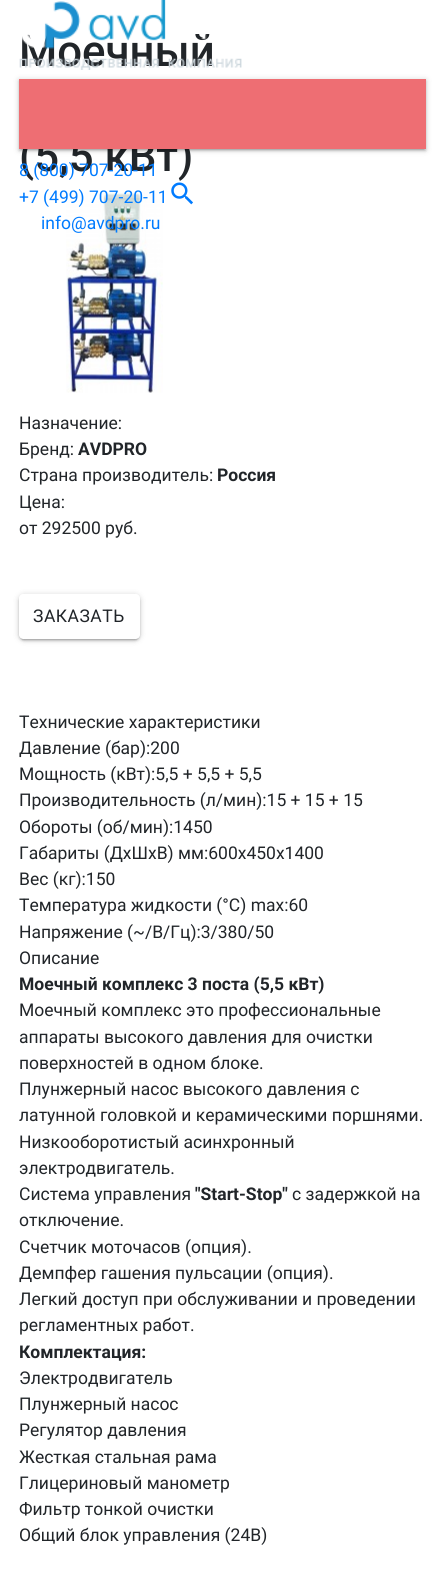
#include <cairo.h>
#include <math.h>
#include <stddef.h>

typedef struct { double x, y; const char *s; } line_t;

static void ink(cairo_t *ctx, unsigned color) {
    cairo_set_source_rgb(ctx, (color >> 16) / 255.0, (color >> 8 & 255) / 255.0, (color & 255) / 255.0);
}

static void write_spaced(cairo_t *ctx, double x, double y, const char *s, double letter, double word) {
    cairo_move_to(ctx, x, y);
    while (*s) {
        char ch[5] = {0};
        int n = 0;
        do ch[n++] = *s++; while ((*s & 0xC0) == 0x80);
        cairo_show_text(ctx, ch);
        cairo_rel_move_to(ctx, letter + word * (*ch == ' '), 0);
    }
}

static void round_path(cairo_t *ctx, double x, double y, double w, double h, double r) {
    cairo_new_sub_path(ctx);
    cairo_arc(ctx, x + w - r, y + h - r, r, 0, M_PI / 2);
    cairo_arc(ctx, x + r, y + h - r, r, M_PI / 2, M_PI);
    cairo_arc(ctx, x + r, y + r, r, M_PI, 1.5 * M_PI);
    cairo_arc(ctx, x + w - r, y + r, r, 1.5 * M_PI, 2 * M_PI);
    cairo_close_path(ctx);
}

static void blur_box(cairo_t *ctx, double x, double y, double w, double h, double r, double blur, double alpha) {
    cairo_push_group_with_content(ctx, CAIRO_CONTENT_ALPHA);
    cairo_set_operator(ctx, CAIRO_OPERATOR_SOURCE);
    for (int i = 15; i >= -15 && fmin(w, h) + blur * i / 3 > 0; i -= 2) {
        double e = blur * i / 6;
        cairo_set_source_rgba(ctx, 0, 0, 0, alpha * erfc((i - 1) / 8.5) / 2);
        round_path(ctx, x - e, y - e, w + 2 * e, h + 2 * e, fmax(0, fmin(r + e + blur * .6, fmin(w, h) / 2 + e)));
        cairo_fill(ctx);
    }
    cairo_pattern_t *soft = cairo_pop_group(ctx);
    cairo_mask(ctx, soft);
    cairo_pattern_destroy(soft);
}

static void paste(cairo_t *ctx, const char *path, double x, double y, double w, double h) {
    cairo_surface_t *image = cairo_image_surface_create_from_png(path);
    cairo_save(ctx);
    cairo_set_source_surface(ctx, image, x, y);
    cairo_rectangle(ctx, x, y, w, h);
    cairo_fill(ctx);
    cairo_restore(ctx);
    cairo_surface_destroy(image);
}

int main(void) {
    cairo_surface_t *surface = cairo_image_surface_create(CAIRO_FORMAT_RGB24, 444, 1571);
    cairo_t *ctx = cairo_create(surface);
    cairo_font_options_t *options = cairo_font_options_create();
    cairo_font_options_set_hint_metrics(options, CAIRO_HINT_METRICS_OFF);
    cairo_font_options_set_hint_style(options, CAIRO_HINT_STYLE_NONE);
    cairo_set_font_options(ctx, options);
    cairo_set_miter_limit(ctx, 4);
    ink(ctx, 0xFFFFFF);
    cairo_paint(ctx);
    cairo_select_font_face(ctx, "Roboto Medium", CAIRO_FONT_SLANT_NORMAL, CAIRO_FONT_WEIGHT_NORMAL);
    cairo_set_font_size(ctx, 43.75);
    ink(ctx, 0x212529);
    cairo_move_to(ctx, 19, 66);
    cairo_show_text(ctx, "Моечный");
    cairo_move_to(ctx, 19, 171);
    cairo_show_text(ctx, "(5,5 кВт)");
    paste(ctx, "media/1.png", 66, 192, 97, 201);
    cairo_select_font_face(ctx, "Roboto", CAIRO_FONT_SLANT_NORMAL, CAIRO_FONT_WEIGHT_NORMAL);
    cairo_set_font_size(ctx, 17.5);
    cairo_move_to(ctx, 19, 429);
    cairo_show_text(ctx, "Назначение:");
    cairo_move_to(ctx, 19, 455);
    cairo_show_text(ctx, "Бренд:");
    cairo_select_font_face(ctx, "Roboto", CAIRO_FONT_SLANT_NORMAL, CAIRO_FONT_WEIGHT_BOLD);
    cairo_move_to(ctx, 78, 455);
    cairo_show_text(ctx, "AVDPRO");
    cairo_select_font_face(ctx, "Roboto", CAIRO_FONT_SLANT_NORMAL, CAIRO_FONT_WEIGHT_NORMAL);
    cairo_move_to(ctx, 19, 481);
    cairo_show_text(ctx, "Страна производитель:");
    cairo_select_font_face(ctx, "Roboto", CAIRO_FONT_SLANT_NORMAL, CAIRO_FONT_WEIGHT_BOLD);
    cairo_move_to(ctx, 217, 481);
    cairo_show_text(ctx, "Россия");
    cairo_select_font_face(ctx, "Roboto", CAIRO_FONT_SLANT_NORMAL, CAIRO_FONT_WEIGHT_NORMAL);
    cairo_move_to(ctx, 19, 508);
    cairo_show_text(ctx, "Цена:");
    cairo_move_to(ctx, 19, 534);
    cairo_show_text(ctx, "от 292500 руб.");
    cairo_save(ctx);
    cairo_set_fill_rule(ctx, CAIRO_FILL_RULE_EVEN_ODD);
    cairo_new_path(ctx);
    cairo_move_to(ctx, 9, 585);
    cairo_line_to(ctx, 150, 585);
    cairo_line_to(ctx, 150, 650);
    cairo_line_to(ctx, 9, 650);
    cairo_close_path(ctx);
    cairo_move_to(ctx, 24, 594);
    cairo_line_to(ctx, 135, 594);
    cairo_curve_to(ctx, 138, 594, 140, 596, 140, 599);
    cairo_line_to(ctx, 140, 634);
    cairo_curve_to(ctx, 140, 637, 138, 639, 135, 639);
    cairo_line_to(ctx, 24, 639);
    cairo_curve_to(ctx, 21, 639, 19, 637, 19, 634);
    cairo_line_to(ctx, 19, 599);
    cairo_curve_to(ctx, 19, 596, 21, 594, 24, 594);
    cairo_close_path(ctx);
    cairo_clip(ctx);
    ink(ctx, 0x000000);
    blur_box(ctx, 19, 595, 121, 45, 5, 3, 0.2);
    cairo_restore(ctx);
    cairo_save(ctx);
    cairo_set_fill_rule(ctx, CAIRO_FILL_RULE_EVEN_ODD);
    cairo_new_path(ctx);
    cairo_move_to(ctx, 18, 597);
    cairo_line_to(ctx, 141, 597);
    cairo_line_to(ctx, 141, 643);
    cairo_line_to(ctx, 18, 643);
    cairo_close_path(ctx);
    cairo_move_to(ctx, 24, 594);
    cairo_line_to(ctx, 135, 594);
    cairo_curve_to(ctx, 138, 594, 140, 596, 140, 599);
    cairo_line_to(ctx, 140, 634);
    cairo_curve_to(ctx, 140, 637, 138, 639, 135, 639);
    cairo_line_to(ctx, 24, 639);
    cairo_curve_to(ctx, 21, 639, 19, 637, 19, 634);
    cairo_line_to(ctx, 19, 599);
    cairo_curve_to(ctx, 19, 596, 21, 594, 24, 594);
    cairo_close_path(ctx);
    cairo_clip(ctx);
    ink(ctx, 0x000000);
    blur_box(ctx, 21, 600, 117, 40, 2, 0.5, 0.12);
    cairo_restore(ctx);
    cairo_save(ctx);
    cairo_set_fill_rule(ctx, CAIRO_FILL_RULE_EVEN_ODD);
    cairo_new_path(ctx);
    cairo_move_to(ctx, 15, 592);
    cairo_line_to(ctx, 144, 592);
    cairo_line_to(ctx, 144, 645);
    cairo_line_to(ctx, 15, 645);
    cairo_close_path(ctx);
    cairo_move_to(ctx, 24, 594);
    cairo_line_to(ctx, 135, 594);
    cairo_curve_to(ctx, 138, 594, 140, 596, 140, 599);
    cairo_line_to(ctx, 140, 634);
    cairo_curve_to(ctx, 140, 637, 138, 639, 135, 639);
    cairo_line_to(ctx, 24, 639);
    cairo_curve_to(ctx, 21, 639, 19, 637, 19, 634);
    cairo_line_to(ctx, 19, 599);
    cairo_curve_to(ctx, 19, 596, 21, 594, 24, 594);
    cairo_close_path(ctx);
    cairo_clip(ctx);
    ink(ctx, 0x000000);
    blur_box(ctx, 19, 596, 121, 45, 5, 1, 0.14);
    cairo_restore(ctx);
    write_spaced(ctx, 33, 622, "ЗАКАЗАТЬ", 0.5, 0);
    {
        static const line_t items[] = {
            {19, 728, "Технические характеристики"},
            {19, 754, "Давление (бар):200"},
            {19, 780, "Мощность (кВт):5,5 + 5,5 + 5,5"},
            {19, 806, "Производительность (л/мин):15 + 15 + 15"},
            {19, 833, "Обороты (об/мин):1450"},
            {19, 859, "Габариты (ДхШхВ) мм:600х450х1400"},
            {19, 885, "Вес (кг):150"},
            {19, 911, "Температура жидкости (°С) max:60"},
            {19, 938, "Напряжение (~/В/Гц):3/380/50"},
            {19, 964, "Описание"},
        };
        for (size_t i = 0; i < sizeof items / sizeof *items; i++) {
            cairo_move_to(ctx, items[i].x, items[i].y);
            cairo_show_text(ctx, items[i].s);
        }
    }
    cairo_select_font_face(ctx, "Roboto", CAIRO_FONT_SLANT_NORMAL, CAIRO_FONT_WEIGHT_BOLD);
    cairo_move_to(ctx, 19, 990);
    cairo_show_text(ctx, "Моечный комплекс 3 поста (5,5 кВт)");
    cairo_select_font_face(ctx, "Roboto", CAIRO_FONT_SLANT_NORMAL, CAIRO_FONT_WEIGHT_NORMAL);
    {
        static const line_t items[] = {
            {19, 1016, "Моечный комплекс это профессиональные"},
            {19, 1043, "аппараты высокого давления для очистки"},
            {19, 1069, "поверхностей в одном блоке."},
            {19, 1095, "Плунжерный насос высокого давления с"},
            {19, 1121, "латунной головкой и керамическими поршнями."},
            {19, 1148, "Низкооборотистый асинхронный"},
            {19, 1174, "электродвигатель."},
            {19, 1200, "Система управления"},
        };
        for (size_t i = 0; i < sizeof items / sizeof *items; i++) {
            cairo_move_to(ctx, items[i].x, items[i].y);
            cairo_show_text(ctx, items[i].s);
        }
    }
    cairo_select_font_face(ctx, "Roboto", CAIRO_FONT_SLANT_NORMAL, CAIRO_FONT_WEIGHT_BOLD);
    cairo_move_to(ctx, 195, 1200);
    cairo_show_text(ctx, "\"Start-Stop\"");
    cairo_select_font_face(ctx, "Roboto", CAIRO_FONT_SLANT_NORMAL, CAIRO_FONT_WEIGHT_NORMAL);
    {
        static const line_t items[] = {
            {292, 1200, "с задержкой на"},
            {19, 1226, "отключение."},
            {19, 1253, "Счетчик моточасов (опция)."},
            {19, 1279, "Демпфер гашения пульсации (опция)."},
            {19, 1305, "Легкий доступ при обслуживании и проведении"},
            {19, 1331, "регламентных работ."},
        };
        for (size_t i = 0; i < sizeof items / sizeof *items; i++) {
            cairo_move_to(ctx, items[i].x, items[i].y);
            cairo_show_text(ctx, items[i].s);
        }
    }
    cairo_select_font_face(ctx, "Roboto", CAIRO_FONT_SLANT_NORMAL, CAIRO_FONT_WEIGHT_BOLD);
    cairo_move_to(ctx, 19, 1358);
    cairo_show_text(ctx, "Комплектация:");
    cairo_select_font_face(ctx, "Roboto", CAIRO_FONT_SLANT_NORMAL, CAIRO_FONT_WEIGHT_NORMAL);
    {
        static const line_t items[] = {
            {19, 1384, "Электродвигатель"},
            {19, 1410, "Плунжерный насос"},
            {19, 1436, "Регулятор давления"},
            {19, 1463, "Жесткая стальная рама"},
            {19, 1489, "Глицериновый манометр"},
            {19, 1515, "Фильтр тонкой очистки"},
            {19, 1541, "Общий блок управления (24В)"},
        };
        for (size_t i = 0; i < sizeof items / sizeof *items; i++) {
            cairo_move_to(ctx, items[i].x, items[i].y);
            cairo_show_text(ctx, items[i].s);
        }
    }
    paste(ctx, "media/2.png", 19, 0, 223, 70);
    ink(ctx, 0x000000);
    blur_box(ctx, 19, 80, 407, 70, 0, 3, 0.2);
    blur_box(ctx, 21, 85, 403, 65, 0, 0.5, 0.12);
    blur_box(ctx, 19, 81, 407, 70, 0, 1, 0.14);
    ink(ctx, 0xEE6E73);
    cairo_rectangle(ctx, 19, 79, 407, 70);
    cairo_fill(ctx);
    ink(ctx, 0x007BFF);
    {
        static const line_t items[] = {
            {19, 176, "8 (800) 707-20-11"},
            {19, 203, "+7 (499) 707-20-11"},
            {41, 229, "info@avdpro.ru"},
        };
        for (size_t i = 0; i < sizeof items / sizeof *items; i++) {
            cairo_move_to(ctx, items[i].x, items[i].y);
            cairo_show_text(ctx, items[i].s);
        }
    }
    paste(ctx, "media/3.png", 171, 182, 22, 23);
    cairo_surface_write_to_png(surface, "image.png");
    cairo_font_options_destroy(options);
    cairo_destroy(ctx);
    cairo_surface_destroy(surface);
    return 0;
}
